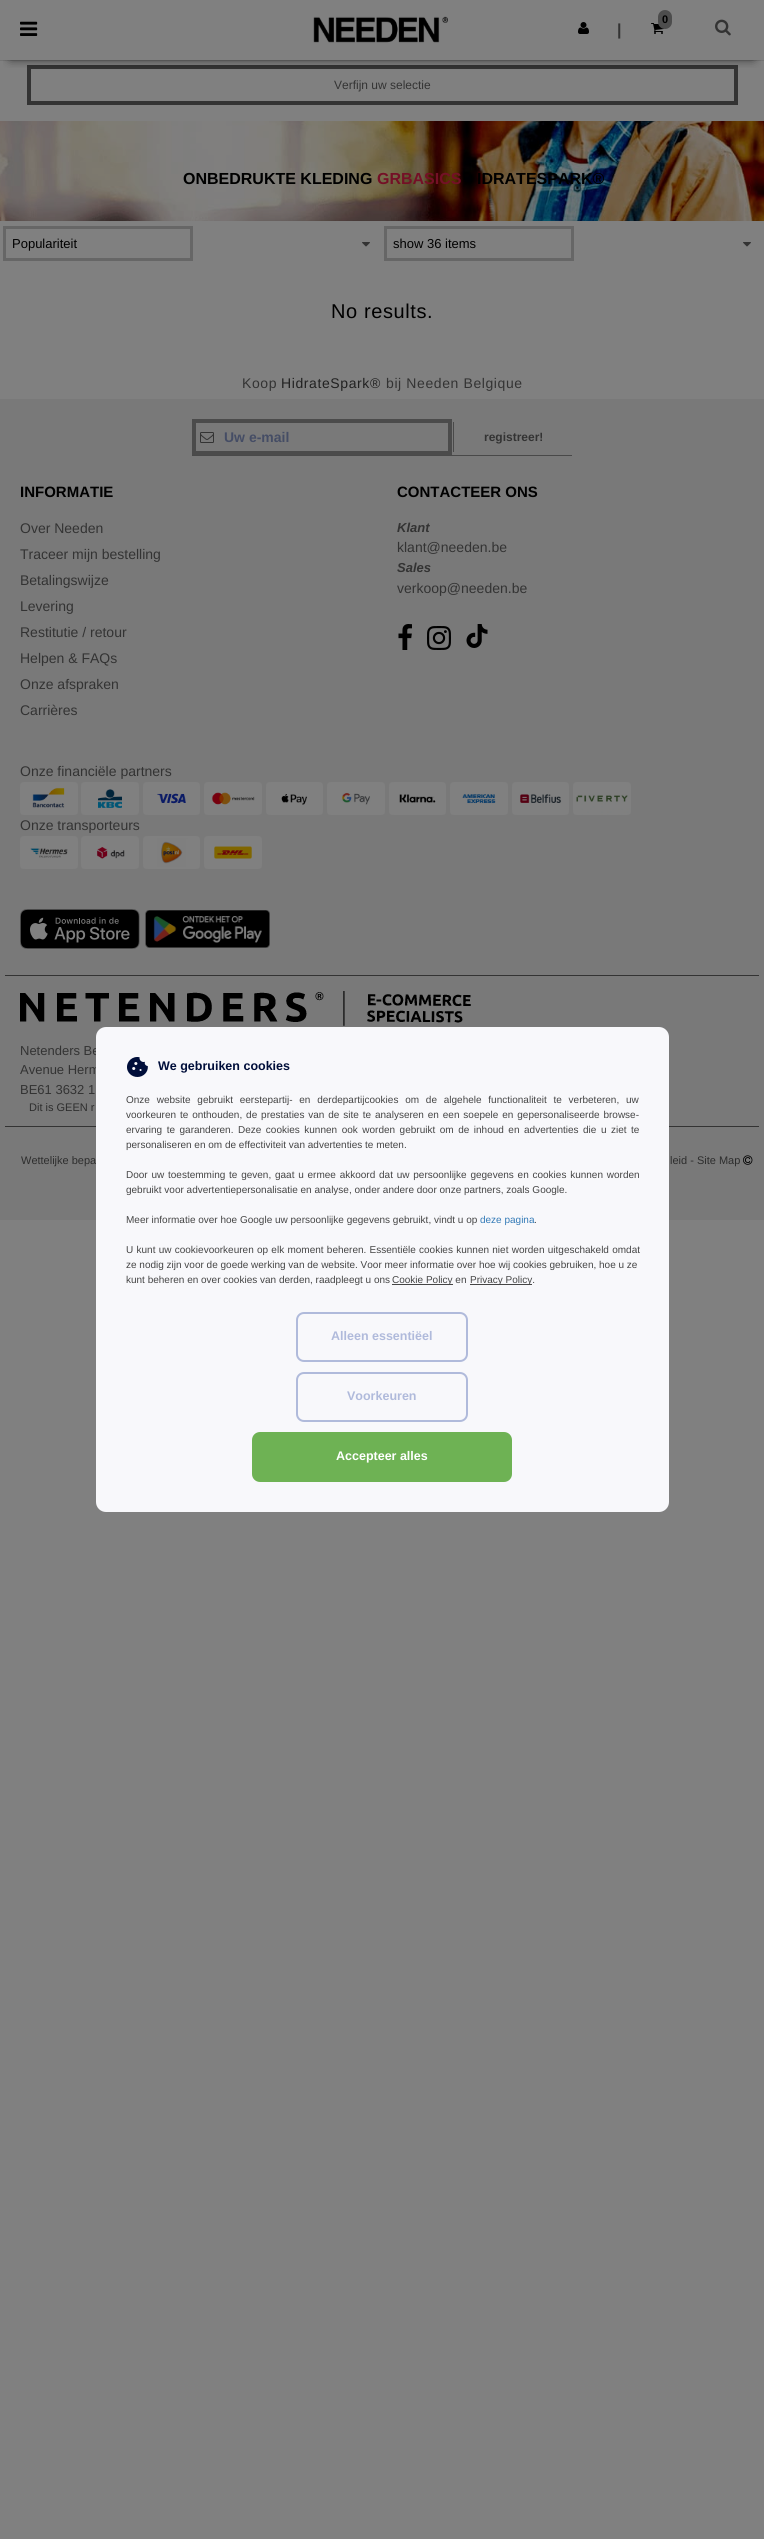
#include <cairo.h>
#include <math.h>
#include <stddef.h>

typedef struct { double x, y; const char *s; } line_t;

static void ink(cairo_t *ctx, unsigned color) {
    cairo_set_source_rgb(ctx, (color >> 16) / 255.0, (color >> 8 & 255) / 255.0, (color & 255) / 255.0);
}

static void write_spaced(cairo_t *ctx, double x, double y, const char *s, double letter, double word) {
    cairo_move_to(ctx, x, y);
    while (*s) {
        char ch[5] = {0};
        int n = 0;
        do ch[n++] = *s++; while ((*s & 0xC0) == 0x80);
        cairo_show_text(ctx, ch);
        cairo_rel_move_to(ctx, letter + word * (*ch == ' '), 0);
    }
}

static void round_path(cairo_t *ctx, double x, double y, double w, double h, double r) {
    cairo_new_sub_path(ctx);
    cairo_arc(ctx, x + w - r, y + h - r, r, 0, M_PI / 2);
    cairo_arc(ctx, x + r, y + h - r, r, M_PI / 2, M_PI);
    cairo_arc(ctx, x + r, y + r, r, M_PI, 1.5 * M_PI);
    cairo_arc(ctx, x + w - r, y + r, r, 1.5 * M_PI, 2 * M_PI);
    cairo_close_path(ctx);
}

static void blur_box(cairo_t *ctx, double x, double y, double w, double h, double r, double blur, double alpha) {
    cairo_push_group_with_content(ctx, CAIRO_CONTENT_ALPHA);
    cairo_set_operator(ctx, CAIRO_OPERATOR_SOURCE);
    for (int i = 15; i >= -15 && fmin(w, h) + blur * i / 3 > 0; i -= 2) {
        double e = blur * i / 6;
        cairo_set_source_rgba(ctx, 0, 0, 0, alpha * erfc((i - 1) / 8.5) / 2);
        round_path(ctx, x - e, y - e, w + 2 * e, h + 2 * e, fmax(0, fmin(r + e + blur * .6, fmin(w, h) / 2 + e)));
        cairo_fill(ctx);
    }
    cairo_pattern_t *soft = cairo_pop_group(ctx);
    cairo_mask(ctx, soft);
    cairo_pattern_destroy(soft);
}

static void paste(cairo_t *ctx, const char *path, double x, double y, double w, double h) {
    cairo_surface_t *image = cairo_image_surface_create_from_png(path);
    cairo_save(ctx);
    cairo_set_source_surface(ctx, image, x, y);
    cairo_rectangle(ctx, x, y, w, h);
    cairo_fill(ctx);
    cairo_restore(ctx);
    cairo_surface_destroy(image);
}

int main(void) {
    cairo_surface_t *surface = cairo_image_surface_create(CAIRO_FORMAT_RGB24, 764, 2539);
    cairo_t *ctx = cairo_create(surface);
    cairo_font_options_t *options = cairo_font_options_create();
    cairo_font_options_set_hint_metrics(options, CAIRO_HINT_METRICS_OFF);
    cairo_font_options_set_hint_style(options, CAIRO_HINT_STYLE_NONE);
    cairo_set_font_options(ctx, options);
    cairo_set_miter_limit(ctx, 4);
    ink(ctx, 0x808080);
    cairo_paint(ctx);
    ink(ctx, 0x737373);
    cairo_rectangle(ctx, 0, 60, 764, 1);
    cairo_fill(ctx);
    cairo_rectangle(ctx, 29, 67, 707, 36);
    ink(ctx, 0x333333);
    cairo_set_line_width(ctx, 4);
    cairo_stroke(ctx);
    cairo_save(ctx);
    cairo_rectangle(ctx, 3, 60, 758, 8);
    cairo_clip(ctx);
    ink(ctx, 0x000000);
    blur_box(ctx, 11, 19, 742, 38, 0, 5.5, 1);
    cairo_restore(ctx);
    paste(ctx, "media/1.png", 20, 21, 18, 15);
    paste(ctx, "media/2.png", 313, 16, 135, 27);
    paste(ctx, "media/3.png", 578, 22, 11, 12);
    cairo_select_font_face(ctx, "Liberation Sans", CAIRO_FONT_SLANT_NORMAL, CAIRO_FONT_WEIGHT_BOLD);
    cairo_set_font_size(ctx, 16);
    cairo_move_to(ctx, 617, 35);
    cairo_show_text(ctx, "|");
    paste(ctx, "media/4.png", 651, 23, 13, 11);
    ink(ctx, 0x4D4D4D);
    round_path(ctx, 658, 10, 14, 19, 7);
    cairo_fill(ctx);
    cairo_set_font_size(ctx, 11);
    ink(ctx, 0x000000);
    cairo_move_to(ctx, 662, 23);
    cairo_show_text(ctx, "0");
    paste(ctx, "media/5.png", 715, 19, 16, 17);
    cairo_select_font_face(ctx, "Liberation Sans", CAIRO_FONT_SLANT_NORMAL, CAIRO_FONT_WEIGHT_NORMAL);
    cairo_set_font_size(ctx, 12);
    ink(ctx, 0x333333);
    cairo_move_to(ctx, 334, 89);
    cairo_show_text(ctx, "Verfijn uw selectie");
    cairo_rectangle(ctx, 4.5, 227.5, 187, 32);
    ink(ctx, 0x666666);
    cairo_set_line_width(ctx, 3);
    cairo_stroke(ctx);
    cairo_set_font_size(ctx, 13);
    ink(ctx, 0x000000);
    cairo_move_to(ctx, 12, 248);
    cairo_show_text(ctx, "Populariteit");
    paste(ctx, "media/6.png", 362, 242, 8, 5);
    cairo_rectangle(ctx, 385.5, 227.5, 187, 32);
    ink(ctx, 0x666666);
    cairo_stroke(ctx);
    ink(ctx, 0x000000);
    cairo_move_to(ctx, 393, 248);
    cairo_show_text(ctx, "show 36 items");
    paste(ctx, "media/6.png", 743, 242, 8, 5);
    cairo_set_font_size(ctx, 20);
    write_spaced(ctx, 331, 318, "No results.", 0.6, 0);
    paste(ctx, "media/7.png", 0, 121, 764, 100);
    cairo_select_font_face(ctx, "Liberation Sans", CAIRO_FONT_SLANT_NORMAL, CAIRO_FONT_WEIGHT_BOLD);
    cairo_set_font_size(ctx, 16);
    cairo_move_to(ctx, 183, 184);
    cairo_show_text(ctx, "ONBEDRUKTE KLEDING");
    ink(ctx, 0x741026);
    cairo_move_to(ctx, 377, 184);
    cairo_show_text(ctx, "GRBASICS");
    ink(ctx, 0x000000);
    cairo_move_to(ctx, 477, 184);
    cairo_show_text(ctx, "IDRATESPARK®");
    cairo_select_font_face(ctx, "Liberation Sans", CAIRO_FONT_SLANT_NORMAL, CAIRO_FONT_WEIGHT_NORMAL);
    cairo_set_font_size(ctx, 14);
    ink(ctx, 0x333333);
    write_spaced(ctx, 242, 388, "Koop", 0.6, 0);
    ink(ctx, 0x212121);
    write_spaced(ctx, 281, 388, "HidrateSpark®", 0.6, 0);
    ink(ctx, 0x333333);
    write_spaced(ctx, 386, 388, "bij Needen Belgique", 0.6, 0);
    ink(ctx, 0x797979);
    cairo_rectangle(ctx, 0, 399, 764, 821);
    cairo_fill(ctx);
    ink(ctx, 0x494949);
    cairo_rectangle(ctx, 192, 455, 380, 1);
    cairo_fill(ctx);
    cairo_rectangle(ctx, 194, 421, 256, 32);
    ink(ctx, 0x4B4B4B);
    cairo_set_line_width(ctx, 4);
    cairo_stroke(ctx);
    paste(ctx, "media/8.png", 200, 432, 14, 11);
    cairo_select_font_face(ctx, "Liberation Sans", CAIRO_FONT_SLANT_NORMAL, CAIRO_FONT_WEIGHT_BOLD);
    ink(ctx, 0x454D65);
    cairo_move_to(ctx, 224, 442);
    cairo_show_text(ctx, "Uw e-mail");
    ink(ctx, 0x494949);
    cairo_rectangle(ctx, 453, 422, 1, 30);
    cairo_fill(ctx);
    cairo_set_font_size(ctx, 12);
    ink(ctx, 0x333333);
    cairo_move_to(ctx, 484, 441);
    cairo_show_text(ctx, "registreer!");
    cairo_set_font_size(ctx, 15);
    ink(ctx, 0x000000);
    cairo_move_to(ctx, 20, 497);
    cairo_show_text(ctx, "INFORMATIE");
    cairo_select_font_face(ctx, "Liberation Sans", CAIRO_FONT_SLANT_NORMAL, CAIRO_FONT_WEIGHT_NORMAL);
    cairo_set_font_size(ctx, 14);
    ink(ctx, 0x333333);
    {
        static const line_t items[] = {
            {20, 533, "Over Needen"},
            {20, 559, "Traceer mijn bestelling"},
            {20, 585, "Betalingswijze"},
            {20, 611, "Levering"},
            {20, 637, "Restitutie / retour"},
            {20, 663, "Helpen & FAQs"},
            {20, 689, "Onze afspraken"},
            {20, 715, "Carrières"},
        };
        for (size_t i = 0; i < sizeof items / sizeof *items; i++) {
            cairo_move_to(ctx, items[i].x, items[i].y);
            cairo_show_text(ctx, items[i].s);
        }
    }
    cairo_select_font_face(ctx, "Liberation Sans", CAIRO_FONT_SLANT_NORMAL, CAIRO_FONT_WEIGHT_BOLD);
    cairo_set_font_size(ctx, 15);
    ink(ctx, 0x000000);
    cairo_move_to(ctx, 397, 497);
    cairo_show_text(ctx, "CONTACTEER ONS");
    cairo_select_font_face(ctx, "Liberation Sans", CAIRO_FONT_SLANT_ITALIC, CAIRO_FONT_WEIGHT_BOLD);
    cairo_set_font_size(ctx, 13);
    ink(ctx, 0x333333);
    cairo_move_to(ctx, 397, 532);
    cairo_show_text(ctx, "Klant");
    cairo_select_font_face(ctx, "Liberation Sans", CAIRO_FONT_SLANT_NORMAL, CAIRO_FONT_WEIGHT_NORMAL);
    cairo_set_font_size(ctx, 14);
    cairo_move_to(ctx, 397, 552);
    cairo_show_text(ctx, "klant@needen.be");
    cairo_select_font_face(ctx, "Liberation Sans", CAIRO_FONT_SLANT_ITALIC, CAIRO_FONT_WEIGHT_BOLD);
    cairo_set_font_size(ctx, 13);
    cairo_move_to(ctx, 397, 572);
    cairo_show_text(ctx, "Sales");
    cairo_select_font_face(ctx, "Liberation Sans", CAIRO_FONT_SLANT_NORMAL, CAIRO_FONT_WEIGHT_NORMAL);
    cairo_set_font_size(ctx, 14);
    cairo_move_to(ctx, 397, 593);
    cairo_show_text(ctx, "verkoop@needen.be");
    paste(ctx, "media/9.png", 398, 624, 14, 26);
    paste(ctx, "media/10.png", 427, 626, 24, 24);
    paste(ctx, "media/11.png", 466, 624, 22, 24);
    cairo_move_to(ctx, 20, 776);
    cairo_show_text(ctx, "Onze financiële partners");
    paste(ctx, "media/12.png", 20, 782, 58, 33);
    paste(ctx, "media/13.png", 81, 782, 58, 33);
    paste(ctx, "media/14.png", 143, 782, 57, 33);
    paste(ctx, "media/15.png", 204, 782, 58, 33);
    paste(ctx, "media/16.png", 266, 782, 57, 33);
    paste(ctx, "media/17.png", 327, 782, 58, 33);
    paste(ctx, "media/18.png", 389, 782, 57, 33);
    paste(ctx, "media/19.png", 450, 782, 58, 33);
    paste(ctx, "media/20.png", 512, 782, 57, 33);
    paste(ctx, "media/21.png", 573, 782, 58, 33);
    cairo_move_to(ctx, 20, 830);
    cairo_show_text(ctx, "Onze transporteurs");
    paste(ctx, "media/22.png", 20, 836, 58, 33);
    paste(ctx, "media/23.png", 81, 836, 58, 33);
    paste(ctx, "media/24.png", 143, 836, 57, 33);
    paste(ctx, "media/25.png", 204, 836, 58, 33);
    paste(ctx, "media/26.png", 20, 909, 120, 40);
    paste(ctx, "media/27.png", 145, 910, 125, 38);
    cairo_rectangle(ctx, 5, 975, 754, 1);
    cairo_fill(ctx);
    cairo_rectangle(ctx, 5, 1126, 754, 1);
    cairo_fill(ctx);
    paste(ctx, "media/28.png", 20, 991, 451, 35);
    cairo_set_font_size(ctx, 13);
    {
        static const line_t items[] = {
            {20, 1055, "Netenders Be"},
            {20, 1074, "Avenue Herm"},
            {20, 1094, "BE61 3632 1"},
        };
        for (size_t i = 0; i < sizeof items / sizeof *items; i++) {
            cairo_move_to(ctx, items[i].x, items[i].y);
            cairo_show_text(ctx, items[i].s);
        }
    }
    cairo_set_font_size(ctx, 11);
    ink(ctx, 0x2D2D2D);
    {
        static const line_t items[] = {
            {29, 1111, "Dit is GEEN r"},
            {21, 1164, "Wettelijke bepa"},
            {670, 1164, "leid - Site Map"},
        };
        for (size_t i = 0; i < sizeof items / sizeof *items; i++) {
            cairo_move_to(ctx, items[i].x, items[i].y);
            cairo_show_text(ctx, items[i].s);
        }
    }
    paste(ctx, "media/29.png", 743, 1155, 10, 10);
    ink(ctx, 0xF8F8FB);
    round_path(ctx, 96, 1027, 573, 485, 10);
    cairo_fill(ctx);
    paste(ctx, "media/30.png", 127, 1057, 21, 20);
    cairo_select_font_face(ctx, "Liberation Sans", CAIRO_FONT_SLANT_NORMAL, CAIRO_FONT_WEIGHT_BOLD);
    cairo_set_font_size(ctx, 12.5);
    ink(ctx, 0x000E3A);
    cairo_move_to(ctx, 158, 1070);
    cairo_show_text(ctx, "We gebruiken cookies");
    cairo_select_font_face(ctx, "Liberation Sans", CAIRO_FONT_SLANT_NORMAL, CAIRO_FONT_WEIGHT_NORMAL);
    cairo_set_font_size(ctx, 10);
    ink(ctx, 0x454545);
    write_spaced(ctx, 126, 1103, "Onze website gebruikt eerstepartij- en derdepartijcookies om de algehele functionaliteit te verbeteren, uw", 0, 4);
    write_spaced(ctx, 126, 1118, "voorkeuren te onthouden, de prestaties van de site te analyseren en een soepele en gepersonaliseerde browse-", 0, 1.1);
    write_spaced(ctx, 126, 1133, "ervaring te garanderen. Deze cookies kunnen ook worden gebruikt om de inhoud en advertenties die u ziet te", 0, 1.75);
    cairo_move_to(ctx, 126, 1148);
    cairo_show_text(ctx, "personaliseren en om de effectiviteit van advertenties te meten.");
    write_spaced(ctx, 126, 1178, "Door uw toestemming te geven, gaat u ermee akkoord dat uw persoonlijke gegevens en cookies kunnen worden", 0, 1);
    cairo_move_to(ctx, 126, 1193);
    cairo_show_text(ctx, "gebruikt voor advertentiepersonalisatie en analyse, onder andere door onze partners, zoals Google.");
    cairo_move_to(ctx, 126, 1223);
    cairo_show_text(ctx, "Meer informatie over hoe Google uw persoonlijke gegevens gebruikt, vindt u op");
    ink(ctx, 0x337AB7);
    cairo_move_to(ctx, 480, 1223);
    cairo_show_text(ctx, "deze pagina");
    ink(ctx, 0x454545);
    cairo_move_to(ctx, 534, 1223);
    cairo_show_text(ctx, ".");
    write_spaced(ctx, 126, 1253, "U kunt uw cookievoorkeuren op elk moment beheren. Essentiële cookies kunnen niet worden uitgeschakeld omdat", 0, 0.5);
    cairo_move_to(ctx, 126, 1268);
    cairo_show_text(ctx, "ze nodig zijn voor de goede werking van de website. Voor meer informatie over hoe wij cookies gebruiken, hoe u ze");
    cairo_move_to(ctx, 126, 1283);
    cairo_show_text(ctx, "kunt beheren en over cookies van derden, raadpleegt u ons");
    cairo_rectangle(ctx, 392, 1284, 61, 1);
    cairo_fill(ctx);
    cairo_move_to(ctx, 392, 1283);
    cairo_show_text(ctx, "Cookie Policy en");
    cairo_rectangle(ctx, 470, 1284, 62, 1);
    cairo_fill(ctx);
    cairo_move_to(ctx, 470, 1283);
    cairo_show_text(ctx, "Privacy Policy.");
    round_path(ctx, 297, 1313, 170, 48, 7);
    ink(ctx, 0xB0BADB);
    cairo_set_line_width(ctx, 2);
    cairo_stroke(ctx);
    cairo_select_font_face(ctx, "Liberation Sans", CAIRO_FONT_SLANT_NORMAL, CAIRO_FONT_WEIGHT_BOLD);
    cairo_set_font_size(ctx, 12.5);
    cairo_move_to(ctx, 331, 1340);
    cairo_show_text(ctx, "Alleen essentiëel");
    round_path(ctx, 297, 1373, 170, 48, 7);
    cairo_stroke(ctx);
    cairo_move_to(ctx, 347, 1400);
    cairo_show_text(ctx, "Voorkeuren");
    ink(ctx, 0x6EB254);
    round_path(ctx, 252, 1432, 260, 50, 8);
    cairo_fill(ctx);
    ink(ctx, 0xFFFFFF);
    cairo_move_to(ctx, 336, 1460);
    cairo_show_text(ctx, "Accepteer alles");
    cairo_surface_write_to_png(surface, "image.png");
    cairo_font_options_destroy(options);
    cairo_destroy(ctx);
    cairo_surface_destroy(surface);
    return 0;
}
